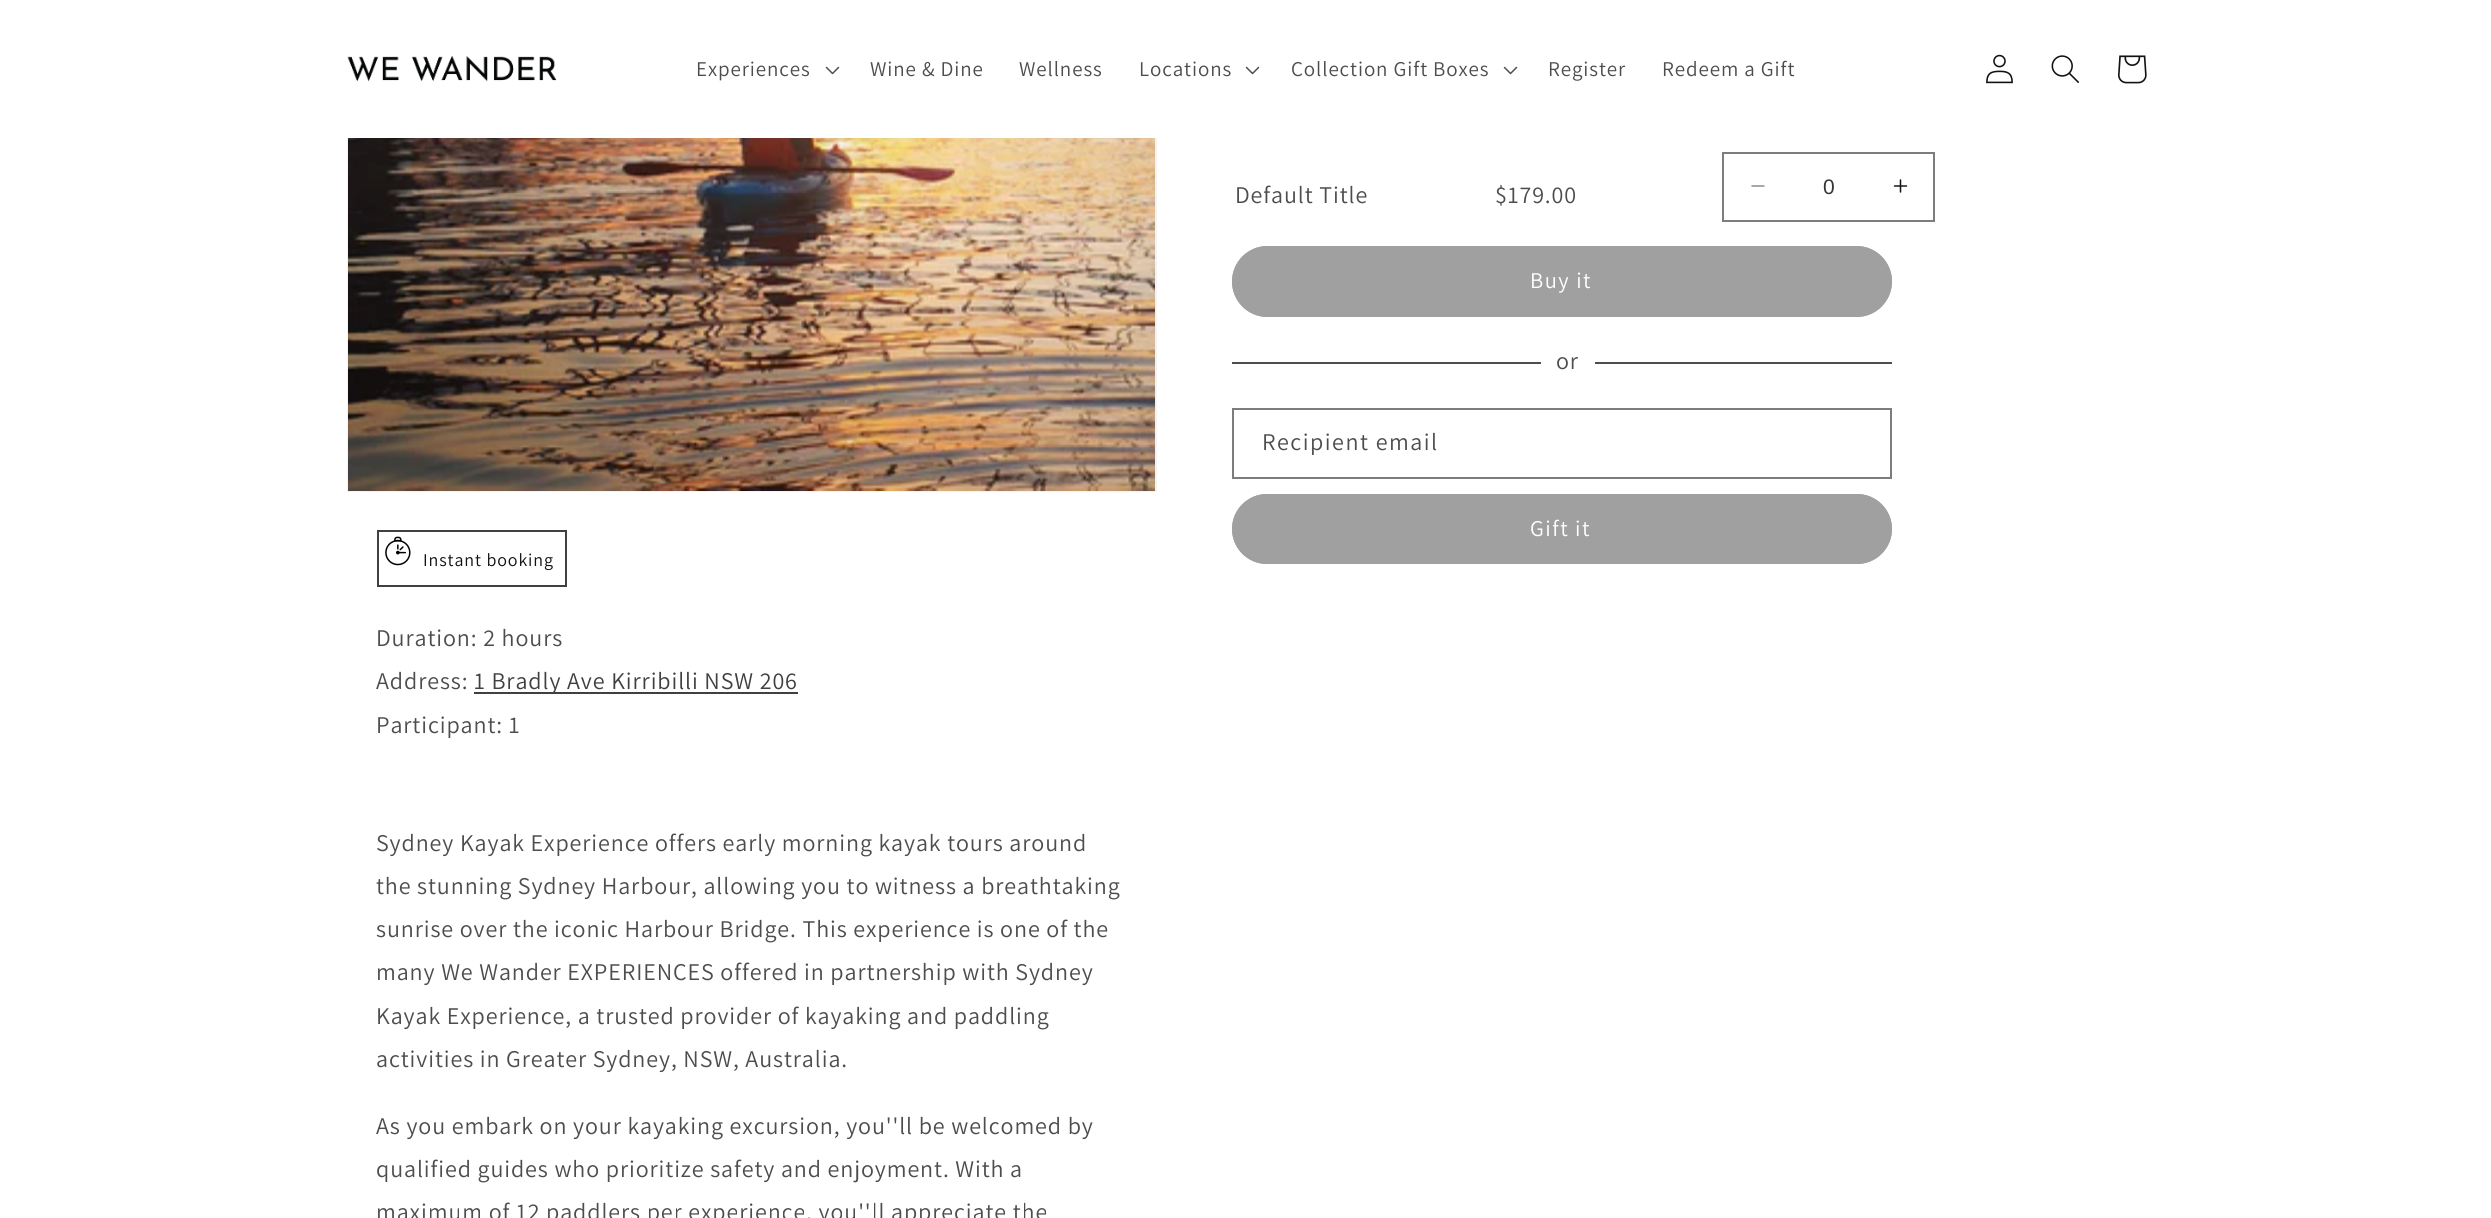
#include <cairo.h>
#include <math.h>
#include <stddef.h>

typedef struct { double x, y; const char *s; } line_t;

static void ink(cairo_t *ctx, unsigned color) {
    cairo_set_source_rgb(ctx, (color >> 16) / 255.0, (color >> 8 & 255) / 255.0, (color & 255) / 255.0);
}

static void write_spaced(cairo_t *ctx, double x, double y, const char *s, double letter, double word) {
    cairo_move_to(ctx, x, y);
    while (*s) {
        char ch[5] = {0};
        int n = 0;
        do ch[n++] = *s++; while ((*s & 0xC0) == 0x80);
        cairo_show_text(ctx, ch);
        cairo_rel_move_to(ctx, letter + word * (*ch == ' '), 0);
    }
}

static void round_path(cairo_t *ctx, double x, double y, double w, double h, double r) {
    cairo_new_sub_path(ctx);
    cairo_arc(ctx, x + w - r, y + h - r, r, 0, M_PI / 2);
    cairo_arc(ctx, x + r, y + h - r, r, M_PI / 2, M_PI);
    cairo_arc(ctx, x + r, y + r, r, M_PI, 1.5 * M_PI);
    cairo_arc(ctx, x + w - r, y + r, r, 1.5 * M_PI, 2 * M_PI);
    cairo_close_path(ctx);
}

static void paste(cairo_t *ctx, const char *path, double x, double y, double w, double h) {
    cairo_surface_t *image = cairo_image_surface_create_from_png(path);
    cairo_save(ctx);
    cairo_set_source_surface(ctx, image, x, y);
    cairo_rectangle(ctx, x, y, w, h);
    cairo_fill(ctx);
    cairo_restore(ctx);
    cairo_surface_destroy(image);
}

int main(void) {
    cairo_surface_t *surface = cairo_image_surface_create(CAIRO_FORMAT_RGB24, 2491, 1218);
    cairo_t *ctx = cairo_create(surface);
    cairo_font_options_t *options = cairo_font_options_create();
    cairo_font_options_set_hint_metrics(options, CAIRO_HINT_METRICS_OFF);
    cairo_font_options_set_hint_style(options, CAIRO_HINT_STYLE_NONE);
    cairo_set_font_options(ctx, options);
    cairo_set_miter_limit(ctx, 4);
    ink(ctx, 0xFFFFFF);
    cairo_paint(ctx);
    cairo_rectangle(ctx, 348, -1, 808, 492);
    ink(ctx, 0xF3F3F3);
    cairo_stroke(ctx);
    ink(ctx, 0xFFFFFF);
    cairo_rectangle(ctx, 347, 0, 810, 138);
    cairo_fill(ctx);
    paste(ctx, "media/1.png", 347, 56, 210, 26);
    cairo_select_font_face(ctx, "Assistant", CAIRO_FONT_SLANT_NORMAL, CAIRO_FONT_WEIGHT_NORMAL);
    cairo_set_font_size(ctx, 21);
    ink(ctx, 0x4D4D4D);
    write_spaced(ctx, 696, 76, "Experiences", 0.9, 0);
    paste(ctx, "media/2.png", 825, 66, 15, 9);
    {
        static const line_t items[] = {
            {870, 76, "Wine & Dine"},
            {1019, 76, "Wellness"},
            {1139, 76, "Locations"},
        };
        for (size_t i = 0; i < sizeof items / sizeof *items; i++) {
            write_spaced(ctx, items[i].x, items[i].y, items[i].s, 0.9, 0);
        }
    }
    paste(ctx, "media/2.png", 1245, 66, 15, 9);
    write_spaced(ctx, 1291, 76, "Collection Gift Boxes", 0.9, 0);
    paste(ctx, "media/2.png", 1503, 66, 15, 9);
    write_spaced(ctx, 1548, 76, "Register", 0.9, 0);
    write_spaced(ctx, 1662, 76, "Redeem a Gift", 0.9, 0);
    paste(ctx, "media/3.png", 1986, 54, 27, 30);
    paste(ctx, "media/4.png", 2051, 55, 28, 28);
    paste(ctx, "media/5.png", 2118, 55, 29, 29);
    cairo_set_font_size(ctx, 24);
    write_spaced(ctx, 1235, 203, "Default Title", 0.9, 0);
    write_spaced(ctx, 1495, 203, "$179.00", 0.9, 0);
    paste(ctx, "media/6.png", 1751, 185, 14, 2);
    paste(ctx, "media/7.png", 1893, 179, 15, 14);
    cairo_rectangle(ctx, 1723, 153, 211, 68);
    ink(ctx, 0x7D7D7D);
    cairo_stroke(ctx);
    cairo_select_font_face(ctx, "Liberation Sans", CAIRO_FONT_SLANT_NORMAL, CAIRO_FONT_WEIGHT_NORMAL);
    cairo_set_font_size(ctx, 21);
    ink(ctx, 0x363636);
    cairo_move_to(ctx, 1823, 194);
    cairo_show_text(ctx, "0");
    ink(ctx, 0xA0A0A0);
    round_path(ctx, 1232, 246, 660, 71, 35.5);
    cairo_fill(ctx);
    round_path(ctx, 1233, 247, 658, 69, 34.5);
    cairo_stroke(ctx);
    cairo_select_font_face(ctx, "Assistant", CAIRO_FONT_SLANT_NORMAL, CAIRO_FONT_WEIGHT_NORMAL);
    cairo_set_font_size(ctx, 22.5);
    ink(ctx, 0xFFFFFF);
    write_spaced(ctx, 1530, 288, "Buy it", 1.5, 0);
    ink(ctx, 0x4D4D4D);
    cairo_rectangle(ctx, 1232, 362, 660, 2);
    cairo_fill(ctx);
    ink(ctx, 0xFFFFFF);
    cairo_rectangle(ctx, 1541, 362, 54, 2);
    cairo_fill(ctx);
    cairo_set_font_size(ctx, 24);
    ink(ctx, 0x4D4D4D);
    write_spaced(ctx, 1556, 369, "or", 0.9, 0);
    cairo_rectangle(ctx, 1233, 409, 658, 69);
    ink(ctx, 0x7D7D7D);
    cairo_stroke(ctx);
    ink(ctx, 0x4D4D4D);
    write_spaced(ctx, 1262, 450, "Recipient email", 1.5, 0);
    ink(ctx, 0xA0A0A0);
    round_path(ctx, 1232, 494, 660, 70, 35);
    cairo_fill(ctx);
    round_path(ctx, 1233, 495, 658, 68, 34);
    cairo_stroke(ctx);
    cairo_set_font_size(ctx, 22.5);
    ink(ctx, 0xFFFFFF);
    write_spaced(ctx, 1530, 536, "Gift it", 1.5, 0);
    paste(ctx, "media/8.png", 348, 138, 807, 353);
    cairo_rectangle(ctx, 378, 531, 188, 55);
    ink(ctx, 0x404040);
    cairo_stroke(ctx);
    paste(ctx, "media/9.png", 385, 536, 26, 30);
    cairo_set_font_size(ctx, 18);
    ink(ctx, 0x121212);
    write_spaced(ctx, 423, 566, "Instant booking", 0.9, 0);
    cairo_set_font_size(ctx, 24);
    ink(ctx, 0x4D4D4D);
    write_spaced(ctx, 376, 646, "Duration: 2 hours", 0.9, 0);
    write_spaced(ctx, 376, 689, "Address:", 0.9, 0);
    ink(ctx, 0x404040);
    cairo_rectangle(ctx, 474, 692, 324, 2);
    cairo_fill(ctx);
    write_spaced(ctx, 474, 689, "1 Bradly Ave Kirribilli NSW 206", 0.9, 0);
    ink(ctx, 0x4D4D4D);
    {
        static const line_t items[] = {
            {376, 733, "Participant: 1"},
            {376, 851, "Sydney Kayak Experience offers early morning kayak tours around"},
            {376, 894, "the stunning Sydney Harbour, allowing you to witness a breathtaking"},
            {376, 937, "sunrise over the iconic Harbour Bridge. This experience is one of the"},
            {376, 980, "many We Wander EXPERIENCES offered in partnership with Sydney"},
            {376, 1024, "Kayak Experience, a trusted provider of kayaking and paddling"},
            {376, 1067, "activities in Greater Sydney, NSW, Australia."},
            {376, 1134, "As you embark on your kayaking excursion, you''ll be welcomed by"},
            {376, 1177, "qualified guides who prioritize safety and enjoyment. With a"},
            {376, 1220, "maximum of 12 paddlers per experience, you''ll appreciate the"},
        };
        for (size_t i = 0; i < sizeof items / sizeof *items; i++) {
            write_spaced(ctx, items[i].x, items[i].y, items[i].s, 0.9, 0);
        }
    }
    cairo_surface_write_to_png(surface, "image.png");
    cairo_font_options_destroy(options);
    cairo_destroy(ctx);
    cairo_surface_destroy(surface);
    return 0;
}
